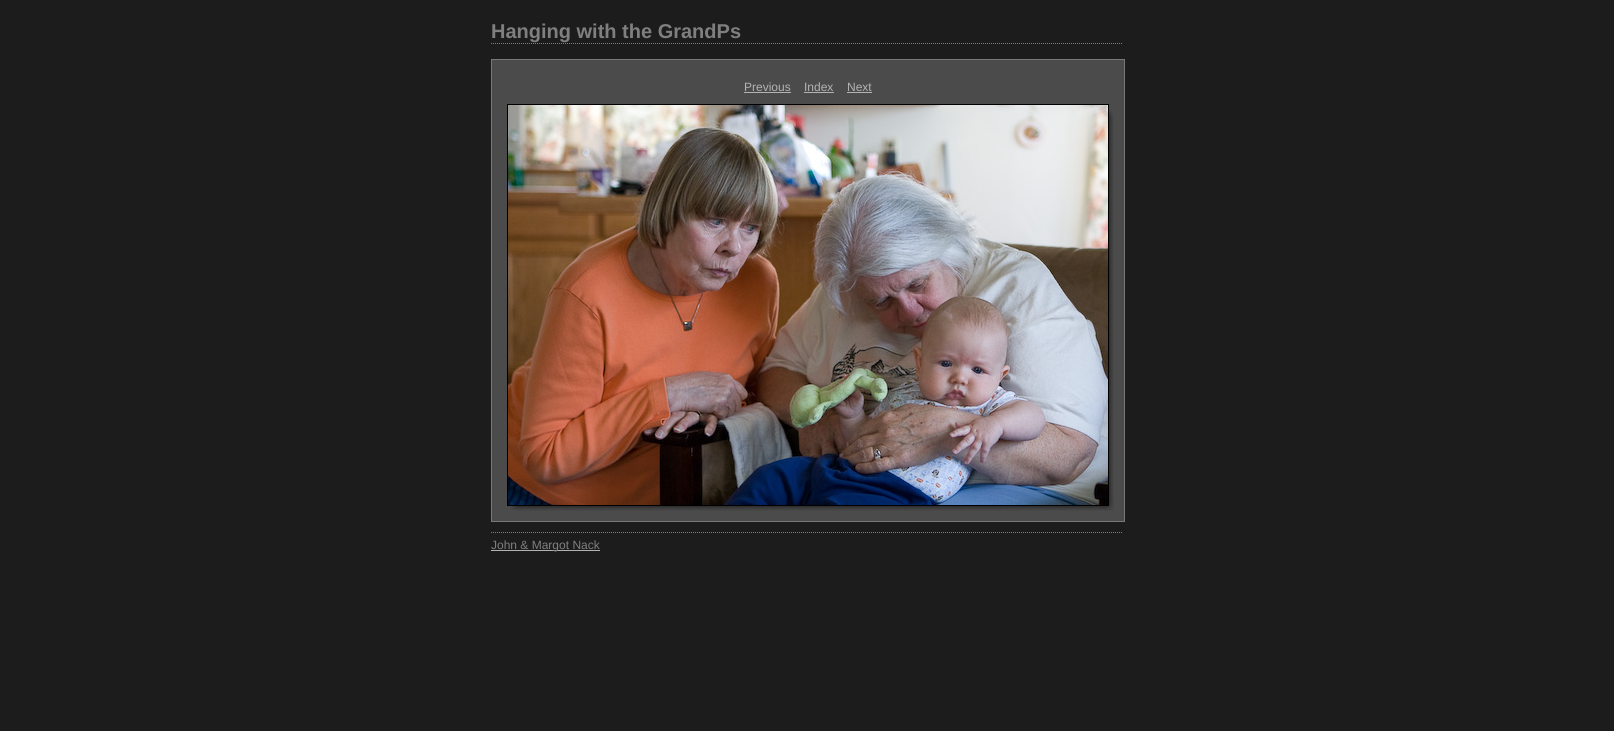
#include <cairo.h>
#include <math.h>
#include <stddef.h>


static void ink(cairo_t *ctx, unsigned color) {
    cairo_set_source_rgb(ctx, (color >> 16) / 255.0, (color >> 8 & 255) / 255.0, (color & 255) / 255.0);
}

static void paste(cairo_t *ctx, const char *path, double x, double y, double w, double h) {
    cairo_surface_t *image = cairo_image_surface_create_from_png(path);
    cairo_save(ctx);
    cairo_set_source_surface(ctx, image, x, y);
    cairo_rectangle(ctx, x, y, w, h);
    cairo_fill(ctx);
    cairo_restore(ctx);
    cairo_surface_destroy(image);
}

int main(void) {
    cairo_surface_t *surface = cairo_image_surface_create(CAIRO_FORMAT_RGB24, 1614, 731);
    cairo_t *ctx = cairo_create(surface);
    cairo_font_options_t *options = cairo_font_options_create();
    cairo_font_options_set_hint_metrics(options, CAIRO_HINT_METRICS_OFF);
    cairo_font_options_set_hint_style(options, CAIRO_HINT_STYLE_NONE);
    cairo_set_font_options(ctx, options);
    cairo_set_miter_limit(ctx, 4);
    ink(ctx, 0x1C1C1C);
    cairo_paint(ctx);
    cairo_new_path(ctx);
    cairo_move_to(ctx, 491, 43.5);
    cairo_line_to(ctx, 1123, 43.5);
    ink(ctx, 0x7F7F7F);
    cairo_set_line_width(ctx, 1);
    cairo_set_dash(ctx, (double[]){1, 1}, 2, 0);
    cairo_stroke(ctx);
    cairo_select_font_face(ctx, "Liberation Sans", CAIRO_FONT_SLANT_NORMAL, CAIRO_FONT_WEIGHT_BOLD);
    cairo_set_font_size(ctx, 20);
    cairo_move_to(ctx, 491, 38);
    cairo_show_text(ctx, "Hanging with the GrandPs");
    cairo_new_path(ctx);
    cairo_move_to(ctx, 491, 532.5);
    cairo_line_to(ctx, 1123, 532.5);
    cairo_stroke(ctx);
    ink(ctx, 0x4B4B4B);
    cairo_rectangle(ctx, 491.5, 59.5, 633, 462);
    cairo_fill_preserve(ctx);
    ink(ctx, 0x787878);
    cairo_set_dash(ctx, NULL, 0, 0);
    cairo_stroke(ctx);
    cairo_select_font_face(ctx, "Liberation Sans", CAIRO_FONT_SLANT_NORMAL, CAIRO_FONT_WEIGHT_NORMAL);
    cairo_set_font_size(ctx, 12);
    ink(ctx, 0xB3B3B3);
    cairo_move_to(ctx, 744, 91);
    cairo_show_text(ctx, "Previous");
    cairo_rectangle(ctx, 744, 92, 47, 1);
    cairo_fill(ctx);
    cairo_move_to(ctx, 804, 91);
    cairo_show_text(ctx, "Index");
    cairo_rectangle(ctx, 804, 92, 30, 1);
    cairo_fill(ctx);
    cairo_move_to(ctx, 847, 91);
    cairo_show_text(ctx, "Next");
    cairo_rectangle(ctx, 847, 92, 25, 1);
    cairo_fill(ctx);
    paste(ctx, "media/1.png", 517, 117, 597, 394);
    cairo_rectangle(ctx, 507.5, 104.5, 601, 401);
    ink(ctx, 0x000000);
    cairo_stroke(ctx);
    paste(ctx, "media/2.png", 508, 105, 600, 400);
    paste(ctx, "media/3.png", 1109, 110, 4, 7);
    paste(ctx, "media/4.png", 510, 506, 7, 4);
    ink(ctx, 0xB3B3B3);
    cairo_rectangle(ctx, 491, 550, 109, 1);
    cairo_fill(ctx);
    ink(ctx, 0x7F7F7F);
    cairo_move_to(ctx, 491, 549);
    cairo_show_text(ctx, "John & Margot Nack");
    cairo_surface_write_to_png(surface, "image.png");
    cairo_font_options_destroy(options);
    cairo_destroy(ctx);
    cairo_surface_destroy(surface);
    return 0;
}
